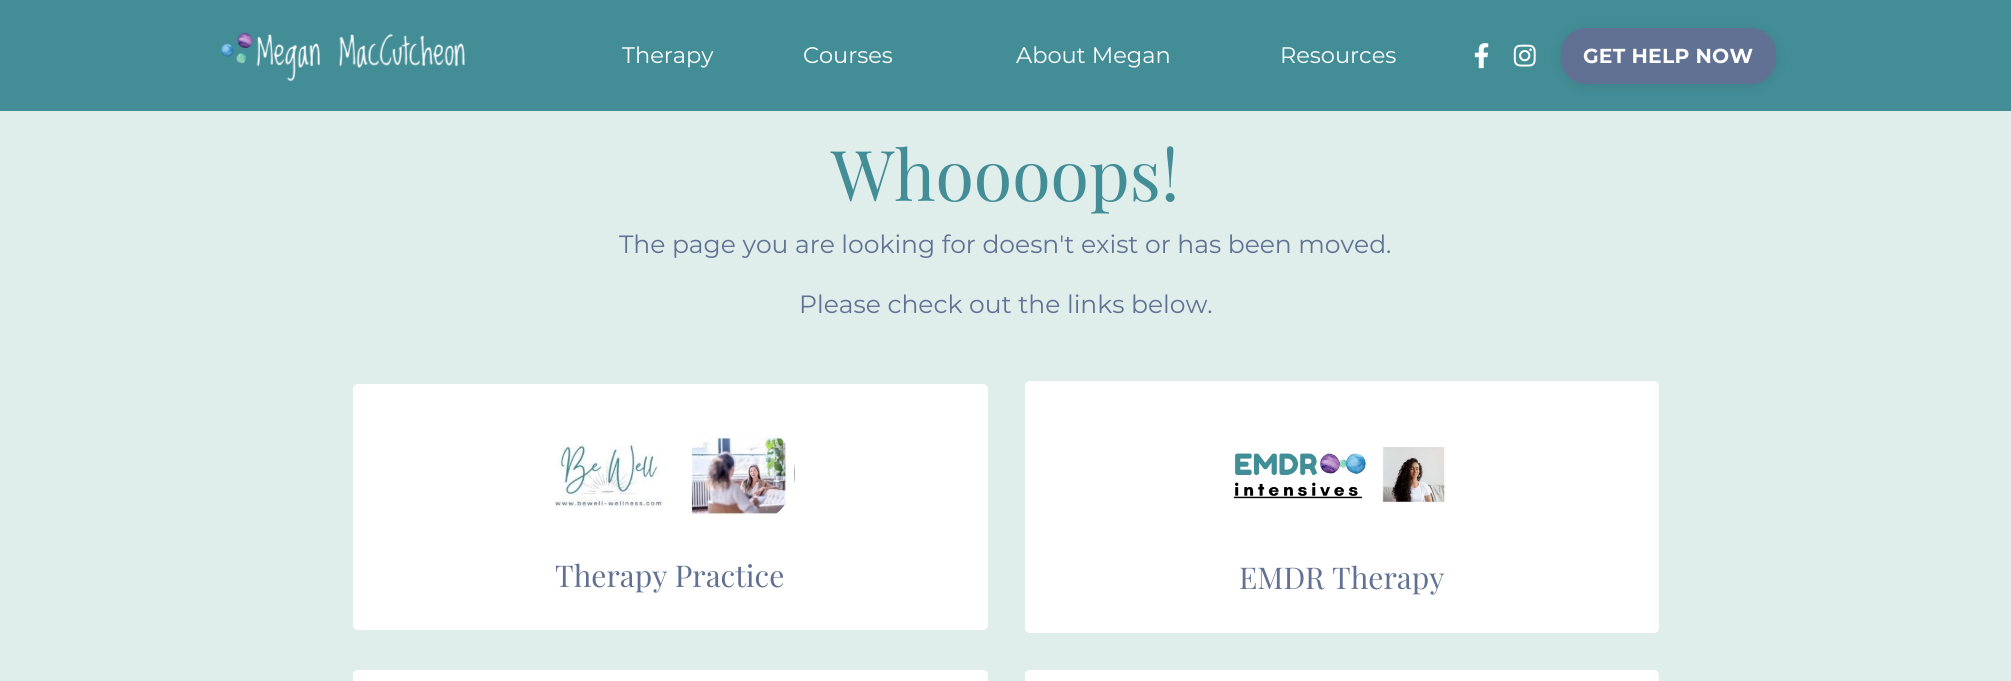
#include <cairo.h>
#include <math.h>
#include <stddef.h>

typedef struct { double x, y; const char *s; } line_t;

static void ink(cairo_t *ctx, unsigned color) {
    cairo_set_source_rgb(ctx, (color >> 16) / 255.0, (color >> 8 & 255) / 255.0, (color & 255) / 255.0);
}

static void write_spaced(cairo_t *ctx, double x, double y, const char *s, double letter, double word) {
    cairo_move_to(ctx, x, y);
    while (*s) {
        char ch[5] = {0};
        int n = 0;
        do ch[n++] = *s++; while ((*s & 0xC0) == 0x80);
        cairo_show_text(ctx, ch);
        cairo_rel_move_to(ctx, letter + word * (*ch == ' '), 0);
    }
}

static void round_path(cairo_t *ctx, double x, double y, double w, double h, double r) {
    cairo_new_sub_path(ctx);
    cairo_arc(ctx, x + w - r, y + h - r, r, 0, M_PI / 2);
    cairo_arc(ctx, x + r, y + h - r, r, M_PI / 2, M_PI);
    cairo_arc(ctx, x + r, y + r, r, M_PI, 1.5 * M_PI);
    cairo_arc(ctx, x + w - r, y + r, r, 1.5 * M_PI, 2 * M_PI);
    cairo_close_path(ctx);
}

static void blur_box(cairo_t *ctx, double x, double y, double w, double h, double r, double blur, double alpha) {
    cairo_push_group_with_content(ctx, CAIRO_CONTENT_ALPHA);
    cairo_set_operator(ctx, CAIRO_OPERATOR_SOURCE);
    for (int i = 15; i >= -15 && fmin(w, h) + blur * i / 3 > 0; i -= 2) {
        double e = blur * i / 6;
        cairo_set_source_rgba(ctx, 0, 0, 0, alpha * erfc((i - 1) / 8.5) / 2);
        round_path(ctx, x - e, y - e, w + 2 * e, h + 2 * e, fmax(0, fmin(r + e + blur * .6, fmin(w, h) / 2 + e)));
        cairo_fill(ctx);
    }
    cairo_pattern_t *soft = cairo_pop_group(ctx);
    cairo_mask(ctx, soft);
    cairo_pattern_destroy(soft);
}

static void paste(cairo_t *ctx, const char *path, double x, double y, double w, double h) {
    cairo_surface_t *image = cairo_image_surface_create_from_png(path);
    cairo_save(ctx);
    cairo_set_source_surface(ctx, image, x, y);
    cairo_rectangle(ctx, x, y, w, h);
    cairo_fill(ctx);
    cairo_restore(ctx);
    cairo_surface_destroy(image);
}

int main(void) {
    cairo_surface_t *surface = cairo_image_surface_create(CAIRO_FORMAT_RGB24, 2011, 681);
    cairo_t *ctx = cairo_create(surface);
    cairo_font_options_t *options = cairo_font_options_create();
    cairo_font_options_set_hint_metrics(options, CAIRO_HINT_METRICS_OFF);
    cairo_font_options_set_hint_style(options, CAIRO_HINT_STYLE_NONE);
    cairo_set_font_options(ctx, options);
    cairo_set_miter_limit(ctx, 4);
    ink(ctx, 0x438D96);
    cairo_paint(ctx);
    paste(ctx, "media/1.png", 220, 32, 245, 50);
    cairo_select_font_face(ctx, "Montserrat", CAIRO_FONT_SLANT_NORMAL, CAIRO_FONT_WEIGHT_NORMAL);
    cairo_set_font_size(ctx, 22.5);
    ink(ctx, 0xFFFFFF);
    {
        static const line_t items[] = {
            {622, 63, "Therapy"},
            {803, 63, "Courses"},
            {1016, 63, "About Megan"},
            {1280, 63, "Resources"},
        };
        for (size_t i = 0; i < sizeof items / sizeof *items; i++) {
            cairo_move_to(ctx, items[i].x, items[i].y);
            cairo_show_text(ctx, items[i].s);
        }
    }
    paste(ctx, "media/2.png", 1474, 43, 15, 26);
    paste(ctx, "media/3.png", 1513, 44, 23, 23);
    ink(ctx, 0x000000);
    blur_box(ctx, 1561, 30, 215, 56, 25, 6, 0.1);
    ink(ctx, 0x617193);
    round_path(ctx, 1562.5, 29.5, 212, 53, 23.5);
    cairo_fill_preserve(ctx);
    cairo_set_line_width(ctx, 3);
    cairo_stroke(ctx);
    cairo_select_font_face(ctx, "Montserrat", CAIRO_FONT_SLANT_NORMAL, CAIRO_FONT_WEIGHT_BOLD);
    cairo_set_font_size(ctx, 20.25);
    ink(ctx, 0xFFFFFF);
    write_spaced(ctx, 1583, 63, "GET HELP NOW", 0.25, 0);
    ink(ctx, 0xDFEDEB);
    cairo_rectangle(ctx, 0, 111, 2011, 570);
    cairo_fill(ctx);
    cairo_select_font_face(ctx, "Playfair Display", CAIRO_FONT_SLANT_NORMAL, CAIRO_FONT_WEIGHT_NORMAL);
    cairo_set_font_size(ctx, 70);
    ink(ctx, 0x438D96);
    cairo_move_to(ctx, 831, 201);
    cairo_show_text(ctx, "Whoooops!");
    cairo_select_font_face(ctx, "Montserrat", CAIRO_FONT_SLANT_NORMAL, CAIRO_FONT_WEIGHT_NORMAL);
    cairo_set_font_size(ctx, 25);
    ink(ctx, 0x617193);
    cairo_move_to(ctx, 619, 253);
    cairo_show_text(ctx, "The page you are looking for doesn't exist or has been moved.");
    cairo_move_to(ctx, 799, 313);
    cairo_show_text(ctx, "Please check out the links below.");
    ink(ctx, 0xFFFFFF);
    round_path(ctx, 353, 384, 635, 246, 5);
    cairo_fill(ctx);
    paste(ctx, "media/4.png", 555, 435, 240, 80);
    cairo_select_font_face(ctx, "Playfair Display", CAIRO_FONT_SLANT_NORMAL, CAIRO_FONT_WEIGHT_NORMAL);
    cairo_set_font_size(ctx, 30);
    ink(ctx, 0x617193);
    cairo_move_to(ctx, 555, 587);
    cairo_show_text(ctx, "Therapy Practice");
    ink(ctx, 0xFFFFFF);
    round_path(ctx, 1025, 381, 634, 252, 5);
    cairo_fill(ctx);
    paste(ctx, "media/5.png", 1233, 447, 213, 59);
    ink(ctx, 0x617193);
    cairo_move_to(ctx, 1239, 589);
    cairo_show_text(ctx, "EMDR Therapy");
    ink(ctx, 0xFFFFFF);
    round_path(ctx, 353, 670, 635, 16, 5);
    cairo_fill(ctx);
    round_path(ctx, 1025, 670, 634, 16, 5);
    cairo_fill(ctx);
    cairo_surface_write_to_png(surface, "image.png");
    cairo_font_options_destroy(options);
    cairo_destroy(ctx);
    cairo_surface_destroy(surface);
    return 0;
}
